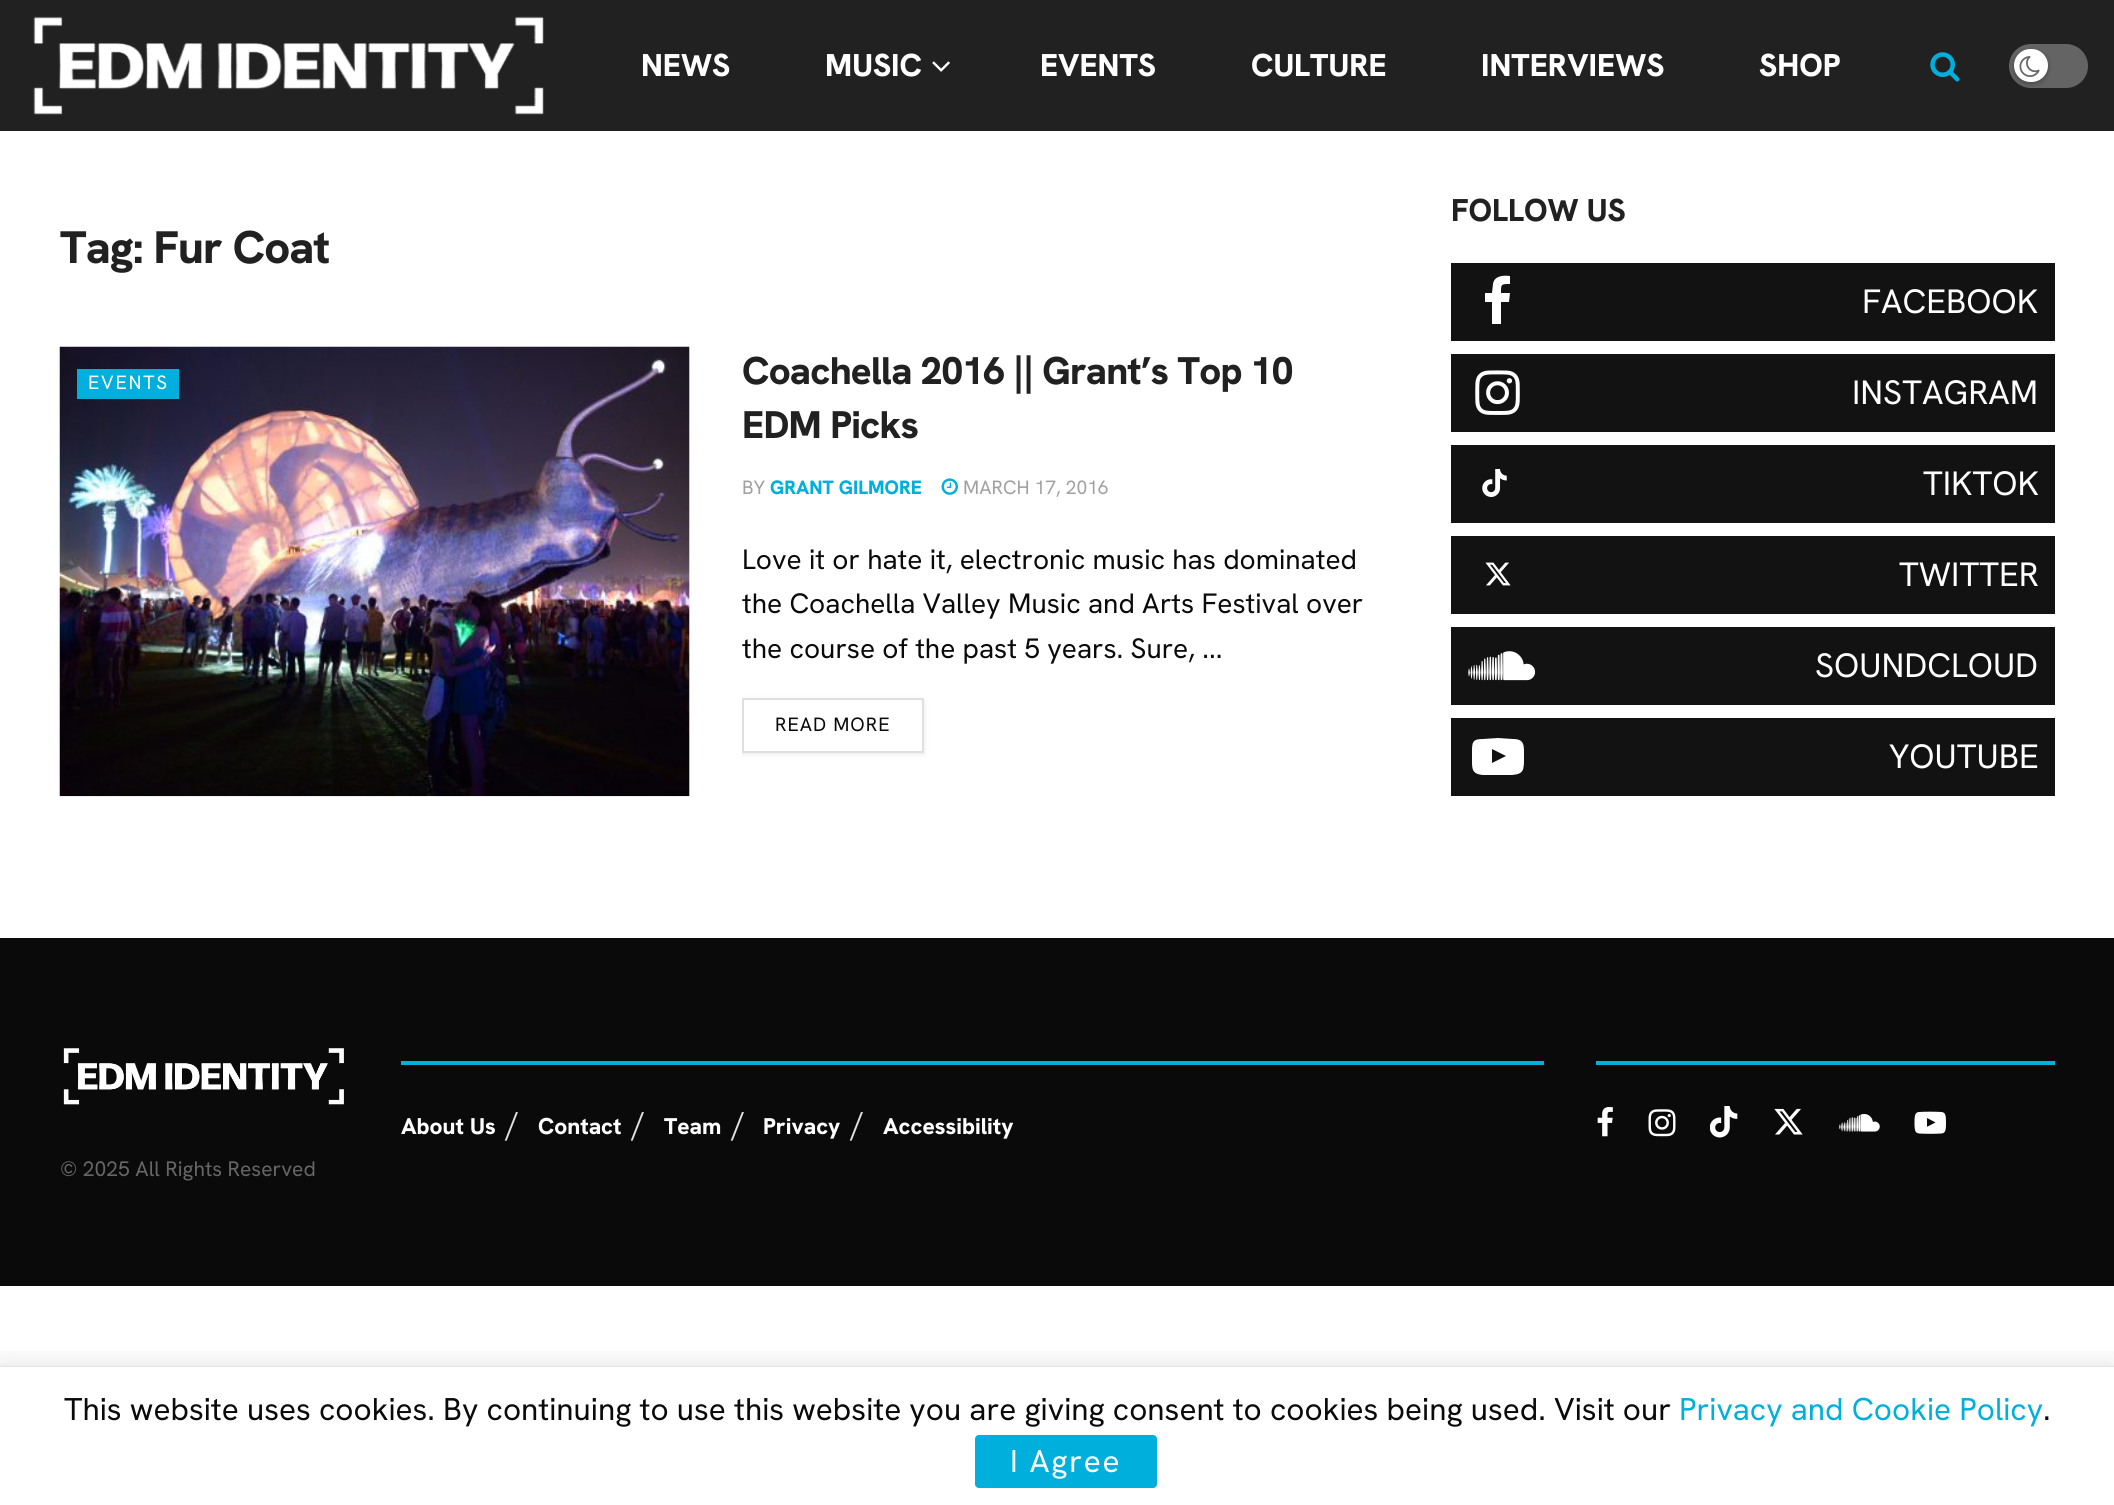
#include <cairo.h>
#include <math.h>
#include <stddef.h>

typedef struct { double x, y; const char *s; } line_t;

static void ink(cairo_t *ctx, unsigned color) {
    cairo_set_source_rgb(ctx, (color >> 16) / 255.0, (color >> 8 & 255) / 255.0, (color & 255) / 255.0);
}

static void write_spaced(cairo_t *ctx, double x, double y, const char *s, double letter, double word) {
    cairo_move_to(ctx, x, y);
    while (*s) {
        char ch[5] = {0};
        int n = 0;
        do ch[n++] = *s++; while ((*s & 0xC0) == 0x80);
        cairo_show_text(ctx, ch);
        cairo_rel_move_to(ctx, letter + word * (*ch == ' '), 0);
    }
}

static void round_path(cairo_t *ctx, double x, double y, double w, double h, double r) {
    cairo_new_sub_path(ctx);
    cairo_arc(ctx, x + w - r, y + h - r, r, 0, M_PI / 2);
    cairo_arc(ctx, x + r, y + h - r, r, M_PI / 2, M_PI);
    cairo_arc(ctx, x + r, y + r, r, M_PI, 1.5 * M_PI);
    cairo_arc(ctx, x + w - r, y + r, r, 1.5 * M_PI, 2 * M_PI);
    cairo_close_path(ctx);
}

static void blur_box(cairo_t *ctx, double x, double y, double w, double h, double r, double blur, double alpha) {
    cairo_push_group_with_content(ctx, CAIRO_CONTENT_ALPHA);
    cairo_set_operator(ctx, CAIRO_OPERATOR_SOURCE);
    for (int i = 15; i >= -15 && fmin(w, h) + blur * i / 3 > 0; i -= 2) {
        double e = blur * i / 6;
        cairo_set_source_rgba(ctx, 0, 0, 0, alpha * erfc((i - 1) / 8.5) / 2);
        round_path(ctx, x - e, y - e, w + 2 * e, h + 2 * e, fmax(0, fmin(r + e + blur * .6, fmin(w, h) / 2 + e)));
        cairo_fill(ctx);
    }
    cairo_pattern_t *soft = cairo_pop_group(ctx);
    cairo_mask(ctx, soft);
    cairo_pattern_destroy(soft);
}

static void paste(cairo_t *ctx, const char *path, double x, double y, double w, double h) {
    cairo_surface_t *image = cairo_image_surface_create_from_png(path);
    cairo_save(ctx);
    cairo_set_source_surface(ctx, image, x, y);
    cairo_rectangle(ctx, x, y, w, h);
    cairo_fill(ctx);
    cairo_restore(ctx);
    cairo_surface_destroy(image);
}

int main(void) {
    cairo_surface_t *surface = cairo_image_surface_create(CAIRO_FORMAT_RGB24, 2114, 1505);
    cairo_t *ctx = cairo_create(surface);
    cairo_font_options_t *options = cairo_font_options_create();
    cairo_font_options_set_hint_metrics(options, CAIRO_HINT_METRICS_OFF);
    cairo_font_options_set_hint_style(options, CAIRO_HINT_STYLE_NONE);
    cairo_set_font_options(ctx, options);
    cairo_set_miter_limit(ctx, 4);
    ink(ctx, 0xFFFFFF);
    cairo_paint(ctx);
    ink(ctx, 0x212121);
    cairo_rectangle(ctx, 0, 0, 2114, 131);
    cairo_fill(ctx);
    paste(ctx, "media/1.png", 33, 16, 511, 99);
    cairo_select_font_face(ctx, "Hanken Grotesk ExtraBold", CAIRO_FONT_SLANT_NORMAL, CAIRO_FONT_WEIGHT_NORMAL);
    cairo_set_font_size(ctx, 31.5);
    ink(ctx, 0xFFFFFF);
    cairo_move_to(ctx, 641, 76);
    cairo_show_text(ctx, "NEWS");
    cairo_move_to(ctx, 825, 76);
    cairo_show_text(ctx, "MUSIC");
    paste(ctx, "media/2.png", 932, 61, 18, 11);
    {
        static const line_t items[] = {
            {1040, 76, "EVENTS"},
            {1251, 76, "CULTURE"},
            {1481, 76, "INTERVIEWS"},
            {1759, 76, "SHOP"},
        };
        for (size_t i = 0; i < sizeof items / sizeof *items; i++) {
            cairo_move_to(ctx, items[i].x, items[i].y);
            cairo_show_text(ctx, items[i].s);
        }
    }
    paste(ctx, "media/3.png", 1930, 52, 30, 30);
    ink(ctx, 0x646464);
    round_path(ctx, 2009, 44, 79, 44, 22);
    cairo_fill(ctx);
    ink(ctx, 0x000000);
    blur_box(ctx, 2014, 51, 34, 33, 16.5, 2.5, 0.3);
    ink(ctx, 0xFFFFFF);
    round_path(ctx, 2014, 49, 34, 33, 16.5);
    cairo_fill(ctx);
    paste(ctx, "media/4.png", 2019, 56, 21, 21);
    cairo_set_font_size(ctx, 45.5);
    ink(ctx, 0x212121);
    write_spaced(ctx, 60, 263, "Tag: Fur Coat", -0.9, 0);
    ink(ctx, 0xF7F7F7);
    cairo_rectangle(ctx, 689, 347, 1, 449);
    cairo_fill(ctx);
    paste(ctx, "media/5.png", 59, 346, 631, 451);
    ink(ctx, 0x00AFDB);
    cairo_rectangle(ctx, 77, 369, 102, 30);
    cairo_fill(ctx);
    cairo_select_font_face(ctx, "Hanken Grotesk", CAIRO_FONT_SLANT_NORMAL, CAIRO_FONT_WEIGHT_NORMAL);
    cairo_set_font_size(ctx, 19.25);
    ink(ctx, 0xFFFFFF);
    write_spaced(ctx, 88, 389, "EVENTS", 1.75, 0);
    cairo_select_font_face(ctx, "Hanken Grotesk ExtraBold", CAIRO_FONT_SLANT_NORMAL, CAIRO_FONT_WEIGHT_NORMAL);
    cairo_set_font_size(ctx, 38.5);
    ink(ctx, 0x212121);
    write_spaced(ctx, 742, 384, "Coachella 2016 || Grant’s Top 10", -0.75, 0);
    write_spaced(ctx, 742, 438, "EDM Picks", -0.75, 0);
    cairo_select_font_face(ctx, "Hanken Grotesk", CAIRO_FONT_SLANT_NORMAL, CAIRO_FONT_WEIGHT_NORMAL);
    cairo_set_font_size(ctx, 19.25);
    ink(ctx, 0xA0A0A0);
    cairo_move_to(ctx, 742, 494);
    cairo_show_text(ctx, "BY");
    cairo_select_font_face(ctx, "Hanken Grotesk ExtraBold", CAIRO_FONT_SLANT_NORMAL, CAIRO_FONT_WEIGHT_NORMAL);
    ink(ctx, 0x00AFDB);
    cairo_move_to(ctx, 770, 494);
    cairo_show_text(ctx, "GRANT GILMORE");
    paste(ctx, "media/6.png", 941, 478, 17, 17);
    cairo_select_font_face(ctx, "Hanken Grotesk", CAIRO_FONT_SLANT_NORMAL, CAIRO_FONT_WEIGHT_NORMAL);
    ink(ctx, 0xA0A0A0);
    cairo_move_to(ctx, 963, 494);
    cairo_show_text(ctx, "MARCH 17, 2016");
    cairo_set_font_size(ctx, 28);
    ink(ctx, 0x0A0A0A);
    {
        static const line_t items[] = {
            {742, 569, "Love it or hate it, electronic music has dominated"},
            {742, 613, "the Coachella Valley Music and Arts Festival over"},
            {742, 658, "the course of the past 5 years. Sure, ..."},
        };
        for (size_t i = 0; i < sizeof items / sizeof *items; i++) {
            cairo_move_to(ctx, items[i].x, items[i].y);
            cairo_show_text(ctx, items[i].s);
        }
    }
    cairo_save(ctx);
    cairo_rectangle(ctx, 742, 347, 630, 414);
    cairo_clip(ctx);
    cairo_set_fill_rule(ctx, CAIRO_FILL_RULE_EVEN_ODD);
    cairo_new_path(ctx);
    cairo_move_to(ctx, 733, 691);
    cairo_line_to(ctx, 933, 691);
    cairo_line_to(ctx, 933, 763);
    cairo_line_to(ctx, 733, 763);
    cairo_close_path(ctx);
    cairo_move_to(ctx, 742, 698);
    cairo_line_to(ctx, 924, 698);
    cairo_line_to(ctx, 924, 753);
    cairo_line_to(ctx, 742, 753);
    cairo_close_path(ctx);
    cairo_clip(ctx);
    ink(ctx, 0x000000);
    blur_box(ctx, 742, 700, 182, 54, 0, 2.5, 0.1);
    cairo_restore(ctx);
    cairo_rectangle(ctx, 743, 699, 180, 53);
    ink(ctx, 0xE0E0E0);
    cairo_stroke(ctx);
    cairo_set_font_size(ctx, 19.25);
    ink(ctx, 0x0A0A0A);
    write_spaced(ctx, 775, 731, "READ MORE", 1, 0);
    cairo_select_font_face(ctx, "Hanken Grotesk ExtraBold", CAIRO_FONT_SLANT_NORMAL, CAIRO_FONT_WEIGHT_NORMAL);
    cairo_set_font_size(ctx, 31.5);
    ink(ctx, 0x212121);
    cairo_move_to(ctx, 1451, 221);
    cairo_show_text(ctx, "FOLLOW US");
    ink(ctx, 0x121212);
    cairo_rectangle(ctx, 1451, 263, 604, 78);
    cairo_fill(ctx);
    ink(ctx, 0xFFFFFF);
    cairo_new_path(ctx);
    cairo_move_to(ctx, 1510, 276);
    cairo_line_to(ctx, 1510, 284);
    cairo_curve_to(ctx, 1501, 284, 1501, 284, 1501, 293);
    cairo_line_to(ctx, 1510, 293);
    cairo_line_to(ctx, 1509, 302);
    cairo_line_to(ctx, 1501, 302);
    cairo_line_to(ctx, 1501, 324);
    cairo_line_to(ctx, 1492, 324);
    cairo_line_to(ctx, 1492, 302);
    cairo_line_to(ctx, 1485, 302);
    cairo_line_to(ctx, 1485, 293);
    cairo_line_to(ctx, 1492, 293);
    cairo_line_to(ctx, 1493, 284);
    cairo_curve_to(ctx, 1494, 276, 1503, 275, 1510, 276);
    cairo_close_path(ctx);
    cairo_fill(ctx);
    cairo_select_font_face(ctx, "Hanken Grotesk", CAIRO_FONT_SLANT_NORMAL, CAIRO_FONT_WEIGHT_NORMAL);
    cairo_set_font_size(ctx, 33.75);
    cairo_move_to(ctx, 1862, 313);
    cairo_show_text(ctx, "FACEBOOK");
    ink(ctx, 0x121212);
    cairo_rectangle(ctx, 1451, 354, 604, 78);
    cairo_fill(ctx);
    paste(ctx, "media/7.png", 1475, 370, 45, 45);
    ink(ctx, 0xFFFFFF);
    cairo_move_to(ctx, 1852, 404);
    cairo_show_text(ctx, "INSTAGRAM");
    ink(ctx, 0x121212);
    cairo_rectangle(ctx, 1451, 445, 604, 78);
    cairo_fill(ctx);
    paste(ctx, "media/8.png", 1482, 469, 25, 28);
    ink(ctx, 0xFFFFFF);
    cairo_move_to(ctx, 1923, 495);
    cairo_show_text(ctx, "TIKTOK");
    ink(ctx, 0x121212);
    cairo_rectangle(ctx, 1451, 536, 604, 78);
    cairo_fill(ctx);
    paste(ctx, "media/9.png", 1485, 562, 26, 24);
    ink(ctx, 0xFFFFFF);
    cairo_move_to(ctx, 1899, 586);
    cairo_show_text(ctx, "TWITTER");
    ink(ctx, 0x121212);
    cairo_rectangle(ctx, 1451, 627, 604, 78);
    cairo_fill(ctx);
    paste(ctx, "media/10.png", 1468, 651, 68, 30);
    ink(ctx, 0xFFFFFF);
    cairo_move_to(ctx, 1815, 677);
    cairo_show_text(ctx, "SOUNDCLOUD");
    ink(ctx, 0x121212);
    cairo_rectangle(ctx, 1451, 718, 604, 78);
    cairo_fill(ctx);
    ink(ctx, 0xFFFFFF);
    cairo_new_path(ctx);
    cairo_move_to(ctx, 1492, 763);
    cairo_line_to(ctx, 1506, 756);
    cairo_line_to(ctx, 1492, 749);
    cairo_close_path(ctx);
    cairo_move_to(ctx, 1498, 738);
    cairo_line_to(ctx, 1513, 739);
    cairo_curve_to(ctx, 1525, 739, 1524, 746, 1524, 757);
    cairo_curve_to(ctx, 1524, 770, 1524, 774, 1512, 775);
    cairo_line_to(ctx, 1483, 775);
    cairo_curve_to(ctx, 1471, 774, 1472, 768, 1472, 757);
    cairo_curve_to(ctx, 1472, 743, 1471, 739, 1483, 739);
    cairo_close_path(ctx);
    cairo_fill(ctx);
    cairo_move_to(ctx, 1889, 768);
    cairo_show_text(ctx, "YOUTUBE");
    ink(ctx, 0x0A0A0A);
    cairo_rectangle(ctx, 0, 938, 2114, 348);
    cairo_fill(ctx);
    ink(ctx, 0x00AFDB);
    cairo_rectangle(ctx, 401, 1061, 1143, 4);
    cairo_fill(ctx);
    cairo_select_font_face(ctx, "Hanken Grotesk ExtraBold", CAIRO_FONT_SLANT_NORMAL, CAIRO_FONT_WEIGHT_NORMAL);
    cairo_set_font_size(ctx, 22.75);
    ink(ctx, 0xFFFFFF);
    cairo_move_to(ctx, 401, 1134);
    cairo_show_text(ctx, "About Us");
    cairo_select_font_face(ctx, "Hanken Grotesk", CAIRO_FONT_SLANT_NORMAL, CAIRO_FONT_WEIGHT_NORMAL);
    cairo_set_font_size(ctx, 31.5);
    ink(ctx, 0xE0E0E0);
    cairo_move_to(ctx, 506, 1134);
    cairo_show_text(ctx, "/");
    cairo_select_font_face(ctx, "Hanken Grotesk ExtraBold", CAIRO_FONT_SLANT_NORMAL, CAIRO_FONT_WEIGHT_NORMAL);
    cairo_set_font_size(ctx, 22.75);
    ink(ctx, 0xFFFFFF);
    cairo_move_to(ctx, 538, 1134);
    cairo_show_text(ctx, "Contact");
    cairo_select_font_face(ctx, "Hanken Grotesk", CAIRO_FONT_SLANT_NORMAL, CAIRO_FONT_WEIGHT_NORMAL);
    cairo_set_font_size(ctx, 31.5);
    ink(ctx, 0xE0E0E0);
    cairo_move_to(ctx, 632, 1134);
    cairo_show_text(ctx, "/");
    cairo_select_font_face(ctx, "Hanken Grotesk ExtraBold", CAIRO_FONT_SLANT_NORMAL, CAIRO_FONT_WEIGHT_NORMAL);
    cairo_set_font_size(ctx, 22.75);
    ink(ctx, 0xFFFFFF);
    cairo_move_to(ctx, 664, 1134);
    cairo_show_text(ctx, "Team");
    cairo_select_font_face(ctx, "Hanken Grotesk", CAIRO_FONT_SLANT_NORMAL, CAIRO_FONT_WEIGHT_NORMAL);
    cairo_set_font_size(ctx, 31.5);
    ink(ctx, 0xE0E0E0);
    cairo_move_to(ctx, 732, 1134);
    cairo_show_text(ctx, "/");
    cairo_select_font_face(ctx, "Hanken Grotesk ExtraBold", CAIRO_FONT_SLANT_NORMAL, CAIRO_FONT_WEIGHT_NORMAL);
    cairo_set_font_size(ctx, 22.75);
    ink(ctx, 0xFFFFFF);
    cairo_move_to(ctx, 763, 1134);
    cairo_show_text(ctx, "Privacy");
    cairo_select_font_face(ctx, "Hanken Grotesk", CAIRO_FONT_SLANT_NORMAL, CAIRO_FONT_WEIGHT_NORMAL);
    cairo_set_font_size(ctx, 31.5);
    ink(ctx, 0xE0E0E0);
    cairo_move_to(ctx, 851, 1134);
    cairo_show_text(ctx, "/");
    cairo_select_font_face(ctx, "Hanken Grotesk ExtraBold", CAIRO_FONT_SLANT_NORMAL, CAIRO_FONT_WEIGHT_NORMAL);
    cairo_set_font_size(ctx, 22.75);
    ink(ctx, 0xFFFFFF);
    cairo_move_to(ctx, 883, 1134);
    cairo_show_text(ctx, "Accessibility");
    ink(ctx, 0x00AFDB);
    cairo_rectangle(ctx, 1596, 1061, 459, 4);
    cairo_fill(ctx);
    paste(ctx, "media/11.png", 1597, 1107, 16, 30);
    paste(ctx, "media/12.png", 1648, 1109, 28, 28);
    paste(ctx, "media/13.png", 1710, 1106, 28, 32);
    paste(ctx, "media/14.png", 1774, 1108, 29, 27);
    paste(ctx, "media/15.png", 1839, 1114, 41, 18);
    paste(ctx, "media/16.png", 1914, 1111, 32, 23);
    paste(ctx, "media/17.png", 63, 1048, 281, 57);
    cairo_select_font_face(ctx, "Hanken Grotesk", CAIRO_FONT_SLANT_NORMAL, CAIRO_FONT_WEIGHT_NORMAL);
    cairo_set_font_size(ctx, 21);
    ink(ctx, 0x666666);
    cairo_move_to(ctx, 60, 1176);
    cairo_show_text(ctx, "© 2025 All Rights Reserved");
    cairo_save(ctx);
    cairo_rectangle(ctx, 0, 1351, 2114, 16);
    cairo_clip(ctx);
    ink(ctx, 0x000000);
    blur_box(ctx, 0, 1370, 2114, 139, 0, 17.5, 0.15);
    cairo_restore(ctx);
    cairo_save(ctx);
    cairo_rectangle(ctx, 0, 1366, 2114, 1);
    cairo_clip(ctx);
    ink(ctx, 0x000000);
    blur_box(ctx, 0, 1367, 2114, 138, 0, 1, 0.2);
    cairo_restore(ctx);
    cairo_set_font_size(ctx, 31.5);
    ink(ctx, 0x0A0A0A);
    cairo_move_to(ctx, 64, 1420);
    cairo_show_text(ctx, "This website uses cookies. By continuing to use this website you are giving consent to cookies being used. Visit our");
    ink(ctx, 0x00AFDB);
    cairo_move_to(ctx, 1679, 1420);
    cairo_show_text(ctx, "Privacy and Cookie Policy");
    ink(ctx, 0x0A0A0A);
    cairo_move_to(ctx, 2043, 1420);
    cairo_show_text(ctx, ".");
    ink(ctx, 0x00AFDB);
    round_path(ctx, 975, 1435, 182, 53, 4);
    cairo_fill(ctx);
    ink(ctx, 0xFFFFFF);
    write_spaced(ctx, 1010, 1472, "I Agree", 1.75, 0);
    cairo_surface_write_to_png(surface, "image.png");
    cairo_font_options_destroy(options);
    cairo_destroy(ctx);
    cairo_surface_destroy(surface);
    return 0;
}
